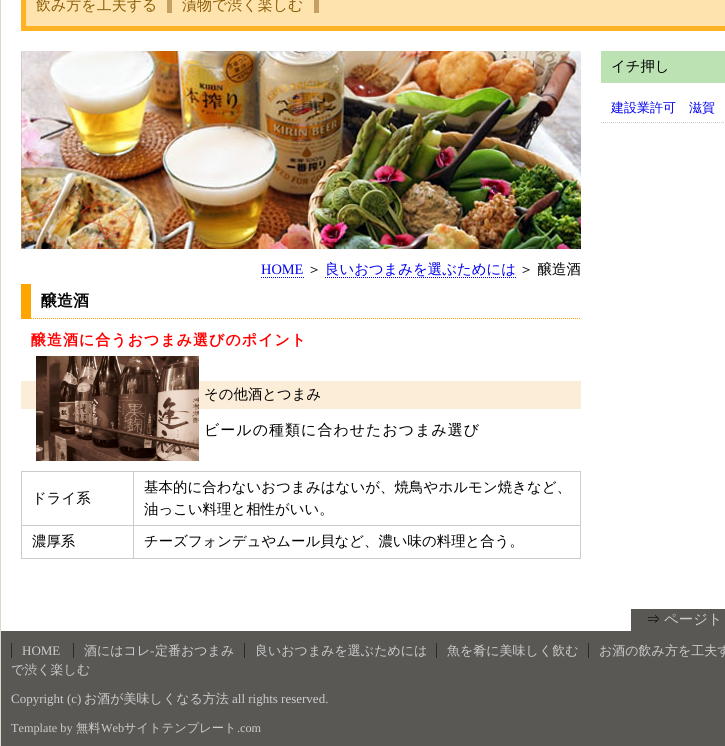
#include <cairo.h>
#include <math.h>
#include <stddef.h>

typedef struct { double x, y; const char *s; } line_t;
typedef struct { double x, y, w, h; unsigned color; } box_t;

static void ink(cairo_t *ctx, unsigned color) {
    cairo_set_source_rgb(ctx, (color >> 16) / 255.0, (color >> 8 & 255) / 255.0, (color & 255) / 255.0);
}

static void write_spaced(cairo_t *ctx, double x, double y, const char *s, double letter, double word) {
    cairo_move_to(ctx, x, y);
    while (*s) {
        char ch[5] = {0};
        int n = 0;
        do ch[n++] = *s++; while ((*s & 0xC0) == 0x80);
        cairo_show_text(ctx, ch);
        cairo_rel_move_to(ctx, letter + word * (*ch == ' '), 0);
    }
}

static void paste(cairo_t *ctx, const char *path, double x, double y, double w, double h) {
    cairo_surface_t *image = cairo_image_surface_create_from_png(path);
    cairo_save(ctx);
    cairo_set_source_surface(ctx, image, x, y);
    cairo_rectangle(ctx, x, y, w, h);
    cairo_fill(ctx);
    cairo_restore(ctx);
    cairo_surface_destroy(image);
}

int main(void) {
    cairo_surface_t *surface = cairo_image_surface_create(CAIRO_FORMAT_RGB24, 725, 746);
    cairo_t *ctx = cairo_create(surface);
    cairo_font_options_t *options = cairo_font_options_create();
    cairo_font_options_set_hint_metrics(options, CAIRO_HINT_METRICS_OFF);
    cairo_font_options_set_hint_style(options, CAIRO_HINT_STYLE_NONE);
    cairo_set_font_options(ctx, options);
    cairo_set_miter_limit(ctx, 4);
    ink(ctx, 0xFFFFFF);
    cairo_paint(ctx);
    ink(ctx, 0xDBD9CB);
    cairo_new_path(ctx);
    cairo_move_to(ctx, 0, 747);
    cairo_line_to(ctx, 0, -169);
    cairo_line_to(ctx, 1, -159);
    cairo_line_to(ctx, 1, 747);
    cairo_close_path(ctx);
    cairo_fill(ctx);
    ink(ctx, 0xFFE3AD);
    cairo_rectangle(ctx, 23.5, -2.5, 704, 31);
    cairo_fill_preserve(ctx);
    ink(ctx, 0xFFB223);
    cairo_set_line_width(ctx, 5);
    cairo_stroke(ctx);
    cairo_select_font_face(ctx, "WenQuanYi Zen Hei Medium", CAIRO_FONT_SLANT_NORMAL, CAIRO_FONT_WEIGHT_NORMAL);
    cairo_set_font_size(ctx, 15);
    ink(ctx, 0x8C5E09);
    cairo_move_to(ctx, 36, 10);
    cairo_show_text(ctx, "飲み方を工夫する");
    ink(ctx, 0xC4A162);
    cairo_rectangle(ctx, 167, 0, 5, 13);
    cairo_fill(ctx);
    ink(ctx, 0x8C5E09);
    cairo_move_to(ctx, 182, 10);
    cairo_show_text(ctx, "漬物で渋く楽しむ");
    ink(ctx, 0xC4A162);
    cairo_rectangle(ctx, 314, 0, 5, 13);
    cairo_fill(ctx);
    ink(ctx, 0xBCE2B3);
    cairo_rectangle(ctx, 601, 51, 124, 32);
    cairo_fill(ctx);
    cairo_set_font_size(ctx, 14.4);
    ink(ctx, 0x000000);
    cairo_move_to(ctx, 611, 71);
    cairo_show_text(ctx, "イチ押し");
    cairo_new_path(ctx);
    cairo_move_to(ctx, 601, 122.5);
    cairo_line_to(ctx, 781, 122.5);
    ink(ctx, 0xCCCCCC);
    cairo_set_line_width(ctx, 1);
    cairo_set_dash(ctx, (double[]){1, 1}, 2, 0);
    cairo_stroke(ctx);
    cairo_set_font_size(ctx, 13);
    ink(ctx, 0x0000EE);
    cairo_move_to(ctx, 611, 112);
    cairo_show_text(ctx, "建設業許可　滋賀");
    paste(ctx, "media/1.png", 21, 51, 560, 198);
    cairo_select_font_face(ctx, "Liberation Serif", CAIRO_FONT_SLANT_NORMAL, CAIRO_FONT_WEIGHT_NORMAL);
    cairo_set_font_size(ctx, 14.4);
    cairo_move_to(ctx, 261, 274);
    cairo_show_text(ctx, "HOME");
    cairo_new_path(ctx);
    cairo_move_to(ctx, 261, 277.5);
    cairo_line_to(ctx, 304, 277.5);
    cairo_stroke(ctx);
    cairo_select_font_face(ctx, "WenQuanYi Zen Hei Medium", CAIRO_FONT_SLANT_NORMAL, CAIRO_FONT_WEIGHT_NORMAL);
    ink(ctx, 0x000000);
    cairo_move_to(ctx, 307, 274);
    cairo_show_text(ctx, "＞");
    ink(ctx, 0x0000EE);
    cairo_move_to(ctx, 325, 274);
    cairo_show_text(ctx, "良いおつまみを選ぶためには");
    cairo_new_path(ctx);
    cairo_move_to(ctx, 325, 277.5);
    cairo_line_to(ctx, 516, 277.5);
    cairo_stroke(ctx);
    ink(ctx, 0x000000);
    cairo_move_to(ctx, 519, 274);
    cairo_show_text(ctx, "＞ 醸造酒");
    cairo_new_path(ctx);
    cairo_move_to(ctx, 21, 318.5);
    cairo_line_to(ctx, 581, 318.5);
    ink(ctx, 0xFFA500);
    cairo_stroke(ctx);
    cairo_rectangle(ctx, 21, 284, 10, 35);
    cairo_fill(ctx);
    cairo_select_font_face(ctx, "WenQuanYi Zen Hei", CAIRO_FONT_SLANT_NORMAL, CAIRO_FONT_WEIGHT_BOLD);
    cairo_set_font_size(ctx, 16);
    ink(ctx, 0x000000);
    cairo_move_to(ctx, 41, 306);
    cairo_show_text(ctx, "醸造酒");
    cairo_set_font_size(ctx, 15);
    ink(ctx, 0xFF0000);
    write_spaced(ctx, 31, 345, "醸造酒に合うおつまみ選びのポイント", 1, 0);
    ink(ctx, 0xFCEDD9);
    cairo_rectangle(ctx, 21, 381, 560, 28);
    cairo_fill(ctx);
    paste(ctx, "media/2.png", 36, 356, 163, 105);
    cairo_select_font_face(ctx, "WenQuanYi Zen Hei Medium", CAIRO_FONT_SLANT_NORMAL, CAIRO_FONT_WEIGHT_NORMAL);
    cairo_set_font_size(ctx, 14.4);
    ink(ctx, 0x000000);
    cairo_move_to(ctx, 204, 399);
    cairo_show_text(ctx, "その他酒とつまみ");
    cairo_set_font_size(ctx, 15);
    write_spaced(ctx, 204, 435, "ビールの種類に合わせたおつまみ選び", 1, 0);
    {
        static const box_t items[] = {
            {21, 471, 560, 1, 0xCCCCCC},
            {580, 471, 1, 88, 0xCCCCCC},
            {21, 558, 560, 1, 0xCCCCCC},
            {21, 471, 1, 88, 0xCCCCCC},
        };
        for (size_t i = 0; i < sizeof items / sizeof *items; i++) {
            ink(ctx, items[i].color);
            cairo_rectangle(ctx, items[i].x, items[i].y, items[i].w, items[i].h);
            cairo_fill(ctx);
        }
    }
    cairo_set_font_size(ctx, 14.4);
    ink(ctx, 0x000000);
    cairo_move_to(ctx, 32, 503);
    cairo_show_text(ctx, "ドライ系");
    {
        static const box_t items[] = {
            {133, 525, 448, 1, 0xCCCCCC},
            {133, 525, 1, 34, 0xCCCCCC},
            {21, 525, 113, 1, 0xCCCCCC},
            {133, 471, 1, 55, 0xCCCCCC},
        };
        for (size_t i = 0; i < sizeof items / sizeof *items; i++) {
            ink(ctx, items[i].color);
            cairo_rectangle(ctx, items[i].x, items[i].y, items[i].w, items[i].h);
            cairo_fill(ctx);
        }
    }
    ink(ctx, 0x000000);
    write_spaced(ctx, 144, 492, "基本的に合わないおつまみはないが、焼鳥やホルモン焼きなど、", 0.1, 0);
    {
        static const line_t items[] = {
            {144, 514, "油っこい料理と相性がいい。"},
            {32, 546, "濃厚系"},
            {144, 546, "チーズフォンデュやムール貝など、濃い味の料理と合う。"},
        };
        for (size_t i = 0; i < sizeof items / sizeof *items; i++) {
            cairo_move_to(ctx, items[i].x, items[i].y);
            cairo_show_text(ctx, items[i].s);
        }
    }
    ink(ctx, 0x595854);
    cairo_rectangle(ctx, 631, 609, 94, 22);
    cairo_fill(ctx);
    ink(ctx, 0x000000);
    cairo_move_to(ctx, 646, 624);
    cairo_show_text(ctx, "⇒");
    ink(ctx, 0xCCCCCC);
    cairo_move_to(ctx, 664, 624);
    cairo_show_text(ctx, "ページト");
    ink(ctx, 0x595854);
    cairo_rectangle(ctx, 1, 631, 724, 115);
    cairo_fill(ctx);
    cairo_select_font_face(ctx, "Liberation Serif", CAIRO_FONT_SLANT_NORMAL, CAIRO_FONT_WEIGHT_NORMAL);
    cairo_set_font_size(ctx, 13);
    ink(ctx, 0xCCCCCC);
    cairo_move_to(ctx, 22, 655);
    cairo_show_text(ctx, "HOME");
    ink(ctx, 0x2D2C24);
    cairo_rectangle(ctx, 11, 643, 1, 15);
    cairo_fill(ctx);
    cairo_select_font_face(ctx, "WenQuanYi Zen Hei Medium", CAIRO_FONT_SLANT_NORMAL, CAIRO_FONT_WEIGHT_NORMAL);
    ink(ctx, 0xCCCCCC);
    cairo_move_to(ctx, 84, 655);
    cairo_show_text(ctx, "酒にはコレ");
    ink(ctx, 0x2D2C24);
    cairo_rectangle(ctx, 73, 643, 1, 15);
    cairo_fill(ctx);
    cairo_select_font_face(ctx, "Liberation Serif", CAIRO_FONT_SLANT_NORMAL, CAIRO_FONT_WEIGHT_NORMAL);
    ink(ctx, 0xCCCCCC);
    cairo_move_to(ctx, 150, 655);
    cairo_show_text(ctx, "‐");
    cairo_select_font_face(ctx, "WenQuanYi Zen Hei Medium", CAIRO_FONT_SLANT_NORMAL, CAIRO_FONT_WEIGHT_NORMAL);
    cairo_move_to(ctx, 155, 655);
    cairo_show_text(ctx, "定番おつまみ");
    cairo_move_to(ctx, 255, 655);
    cairo_show_text(ctx, "良いおつまみを選ぶためには");
    ink(ctx, 0x2D2C24);
    cairo_rectangle(ctx, 244, 643, 1, 15);
    cairo_fill(ctx);
    ink(ctx, 0xCCCCCC);
    cairo_move_to(ctx, 447, 655);
    cairo_show_text(ctx, "魚を肴に美味しく飲む");
    ink(ctx, 0x2D2C24);
    cairo_rectangle(ctx, 436, 643, 1, 15);
    cairo_fill(ctx);
    ink(ctx, 0xCCCCCC);
    cairo_move_to(ctx, 599, 655);
    cairo_show_text(ctx, "お酒の飲み方を工夫す");
    ink(ctx, 0x2D2C24);
    cairo_rectangle(ctx, 588, 643, 1, 15);
    cairo_fill(ctx);
    ink(ctx, 0xCCCCCC);
    cairo_move_to(ctx, 11, 674);
    cairo_show_text(ctx, "で渋く楽しむ");
    cairo_select_font_face(ctx, "Liberation Serif", CAIRO_FONT_SLANT_NORMAL, CAIRO_FONT_WEIGHT_NORMAL);
    cairo_move_to(ctx, 11, 703);
    cairo_show_text(ctx, "Copyright (c)");
    cairo_select_font_face(ctx, "WenQuanYi Zen Hei Medium", CAIRO_FONT_SLANT_NORMAL, CAIRO_FONT_WEIGHT_NORMAL);
    cairo_move_to(ctx, 84, 703);
    cairo_show_text(ctx, "お酒が美味しくなる方法");
    cairo_select_font_face(ctx, "Liberation Serif", CAIRO_FONT_SLANT_NORMAL, CAIRO_FONT_WEIGHT_NORMAL);
    cairo_move_to(ctx, 232, 703);
    cairo_show_text(ctx, "all rights reserved.");
    cairo_set_font_size(ctx, 12.25);
    cairo_move_to(ctx, 11, 732);
    cairo_show_text(ctx, "Template by");
    cairo_select_font_face(ctx, "WenQuanYi Zen Hei Medium", CAIRO_FONT_SLANT_NORMAL, CAIRO_FONT_WEIGHT_NORMAL);
    cairo_move_to(ctx, 76, 732);
    cairo_show_text(ctx, "無料");
    cairo_select_font_face(ctx, "Liberation Serif", CAIRO_FONT_SLANT_NORMAL, CAIRO_FONT_WEIGHT_NORMAL);
    cairo_move_to(ctx, 101, 732);
    cairo_show_text(ctx, "Web");
    cairo_select_font_face(ctx, "WenQuanYi Zen Hei Medium", CAIRO_FONT_SLANT_NORMAL, CAIRO_FONT_WEIGHT_NORMAL);
    cairo_move_to(ctx, 124, 732);
    cairo_show_text(ctx, "サイトテンプレート");
    cairo_select_font_face(ctx, "Liberation Serif", CAIRO_FONT_SLANT_NORMAL, CAIRO_FONT_WEIGHT_NORMAL);
    cairo_move_to(ctx, 237, 732);
    cairo_show_text(ctx, ".com");
    cairo_surface_write_to_png(surface, "image.png");
    cairo_font_options_destroy(options);
    cairo_destroy(ctx);
    cairo_surface_destroy(surface);
    return 0;
}
